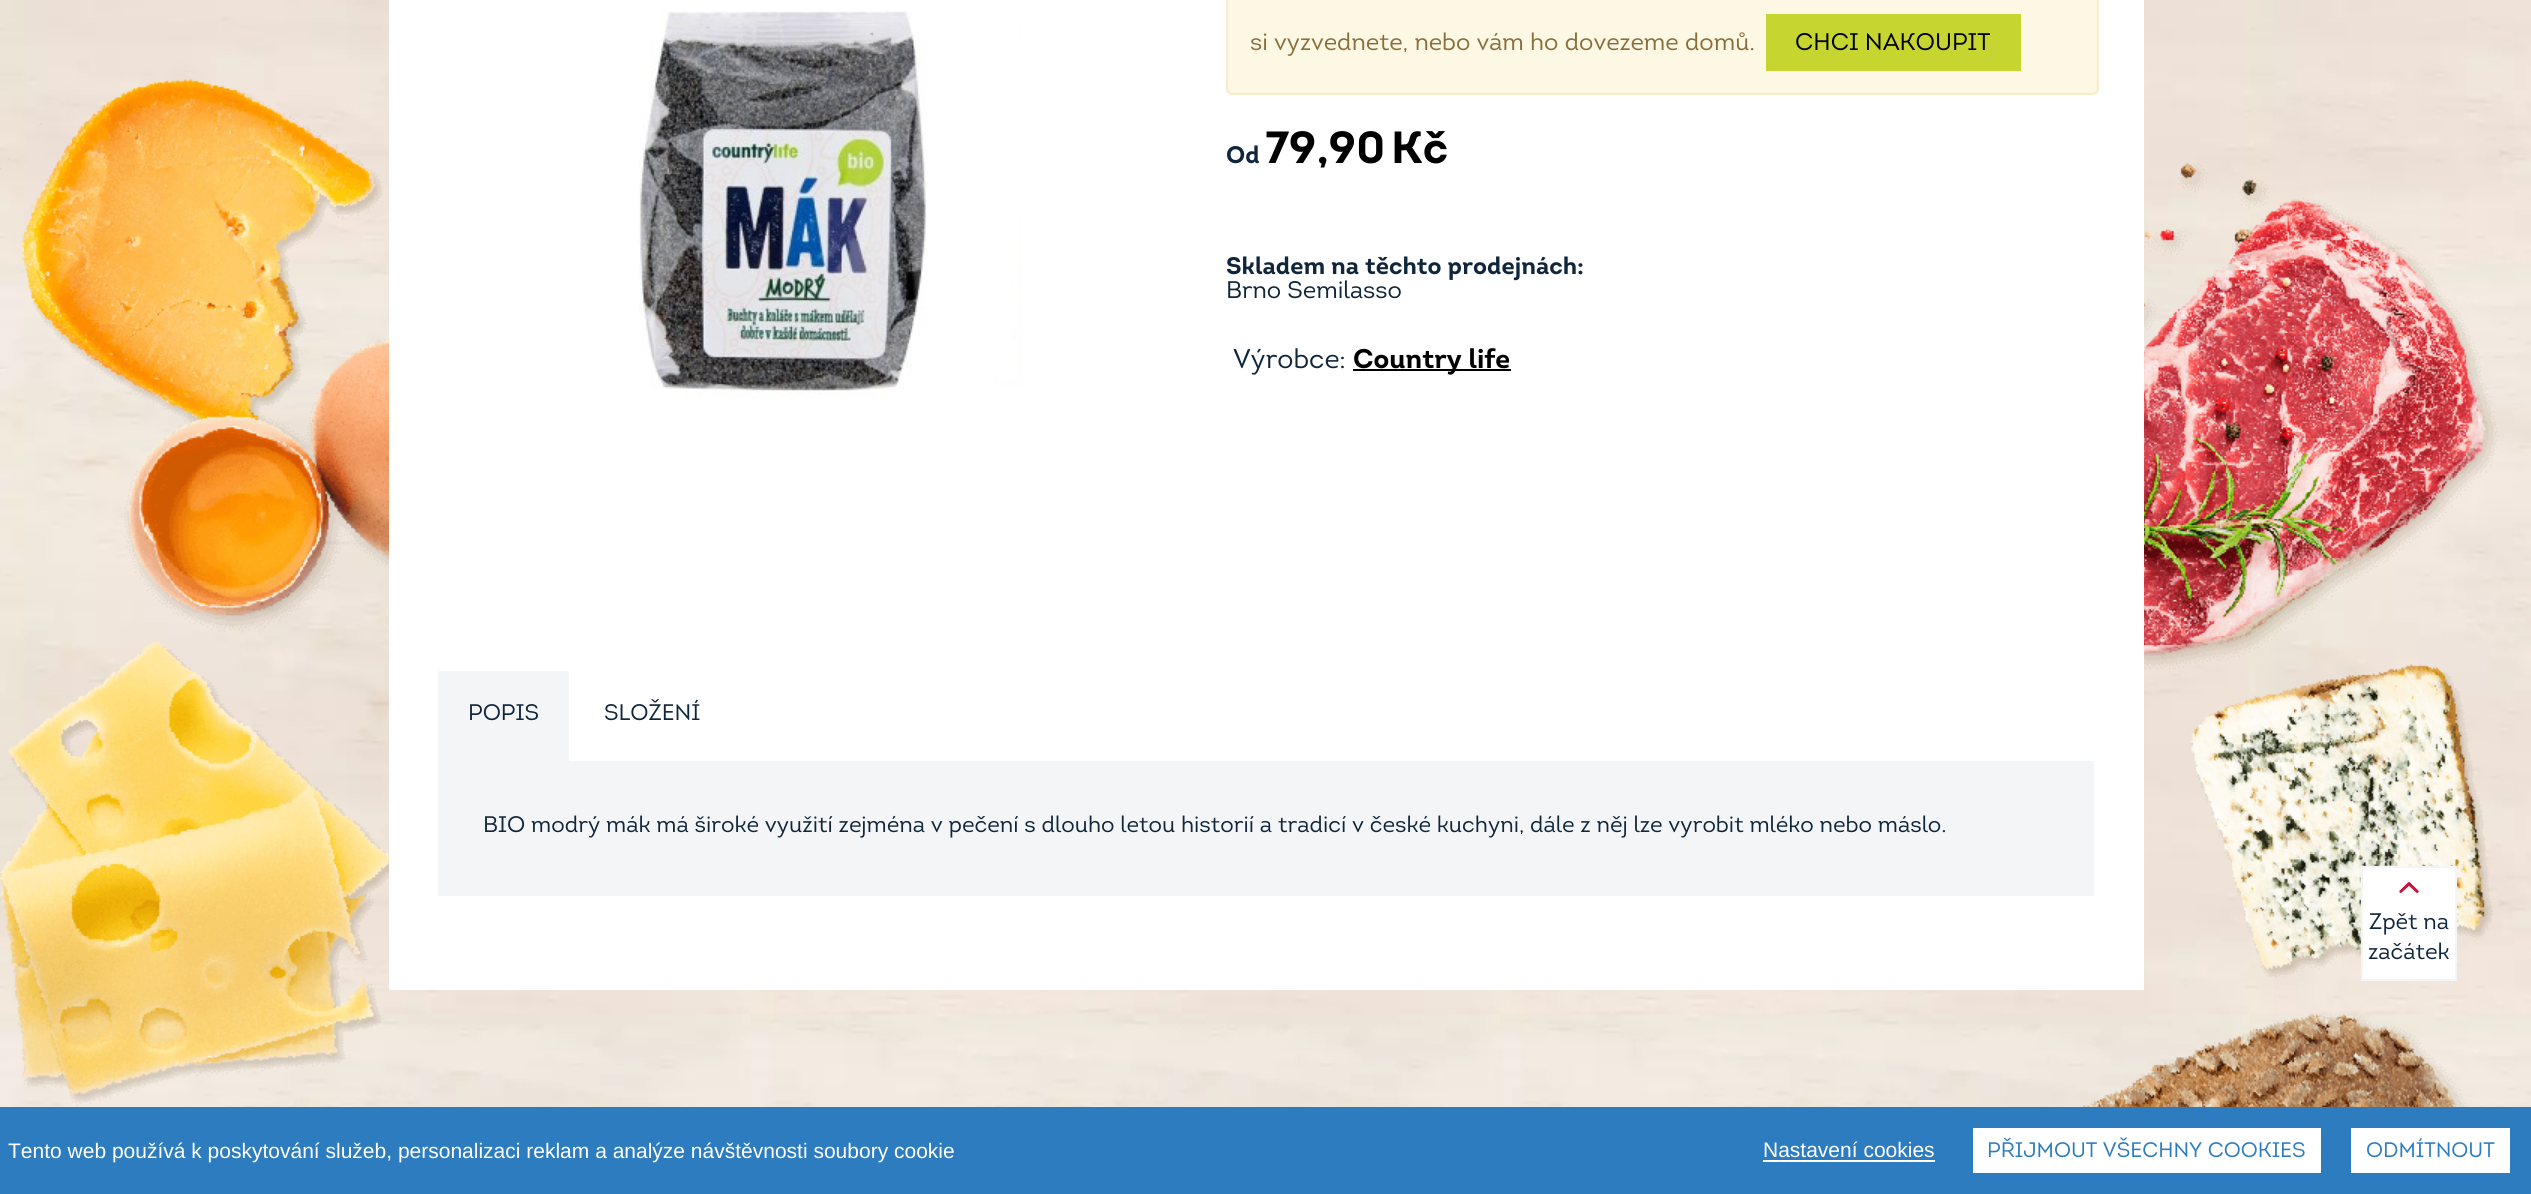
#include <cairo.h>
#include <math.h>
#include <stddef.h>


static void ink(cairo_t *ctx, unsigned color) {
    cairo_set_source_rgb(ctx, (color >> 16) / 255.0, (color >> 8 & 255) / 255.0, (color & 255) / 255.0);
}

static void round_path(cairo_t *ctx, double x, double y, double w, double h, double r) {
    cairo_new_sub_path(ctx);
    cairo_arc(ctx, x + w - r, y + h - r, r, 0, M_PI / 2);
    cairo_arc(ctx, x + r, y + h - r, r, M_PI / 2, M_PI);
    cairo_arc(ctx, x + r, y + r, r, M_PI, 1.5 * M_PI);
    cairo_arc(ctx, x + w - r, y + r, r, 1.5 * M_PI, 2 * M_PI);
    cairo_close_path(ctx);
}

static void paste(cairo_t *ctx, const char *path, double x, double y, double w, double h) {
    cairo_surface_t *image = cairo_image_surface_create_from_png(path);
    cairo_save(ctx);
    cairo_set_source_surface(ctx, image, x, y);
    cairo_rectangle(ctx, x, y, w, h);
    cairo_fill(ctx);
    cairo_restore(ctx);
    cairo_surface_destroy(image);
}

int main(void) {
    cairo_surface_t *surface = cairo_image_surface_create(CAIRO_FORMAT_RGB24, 2531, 1194);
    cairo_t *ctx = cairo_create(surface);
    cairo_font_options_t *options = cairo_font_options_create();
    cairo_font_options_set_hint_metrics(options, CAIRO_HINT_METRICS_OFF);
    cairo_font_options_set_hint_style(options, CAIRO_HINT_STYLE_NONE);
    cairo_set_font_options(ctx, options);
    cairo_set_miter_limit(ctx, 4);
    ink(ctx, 0xFFFFFF);
    cairo_paint(ctx);
    paste(ctx, "media/1.png", 0, 0, 2531, 1107);
    paste(ctx, "media/2.png", 0, 79, 389, 1027);
    paste(ctx, "media/5.png", 2083, 163, 416, 944);
    ink(ctx, 0xFFFFFF);
    cairo_rectangle(ctx, 389, 0, 1755, 990);
    cairo_fill(ctx);
    paste(ctx, "media/3.png", 638, 11, 383, 388);
    ink(ctx, 0xFCF8E3);
    round_path(ctx, 1227, -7, 871, 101, 5);
    cairo_fill_preserve(ctx);
    ink(ctx, 0xFAEBCC);
    cairo_stroke(ctx);
    cairo_select_font_face(ctx, "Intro", CAIRO_FONT_SLANT_NORMAL, CAIRO_FONT_WEIGHT_NORMAL);
    cairo_set_font_size(ctx, 24);
    ink(ctx, 0x8A6D3B);
    cairo_move_to(ctx, 1250, 50);
    cairo_show_text(ctx, "si vyzvednete, nebo vám ho dovezeme domů.");
    ink(ctx, 0xC7D530);
    cairo_rectangle(ctx, 1766, 14, 255, 57);
    cairo_fill(ctx);
    ink(ctx, 0x000000);
    cairo_move_to(ctx, 1795, 50);
    cairo_show_text(ctx, "CHCI NAKOUPIT");
    cairo_select_font_face(ctx, "Intro", CAIRO_FONT_SLANT_NORMAL, CAIRO_FONT_WEIGHT_BOLD);
    ink(ctx, 0x10263B);
    cairo_move_to(ctx, 1226, 163);
    cairo_show_text(ctx, "Od");
    cairo_set_font_size(ctx, 45);
    ink(ctx, 0x000000);
    cairo_move_to(ctx, 1265, 163);
    cairo_show_text(ctx, "79,90");
    cairo_move_to(ctx, 1391, 163);
    cairo_show_text(ctx, "Kč");
    cairo_set_font_size(ctx, 24);
    ink(ctx, 0x10263B);
    cairo_move_to(ctx, 1226, 274);
    cairo_show_text(ctx, "Skladem na těchto prodejnách:");
    cairo_select_font_face(ctx, "Intro", CAIRO_FONT_SLANT_NORMAL, CAIRO_FONT_WEIGHT_NORMAL);
    cairo_move_to(ctx, 1226, 298);
    cairo_show_text(ctx, "Brno Semilasso");
    cairo_set_font_size(ctx, 27);
    cairo_move_to(ctx, 1233, 368);
    cairo_show_text(ctx, "Výrobce:");
    ink(ctx, 0x000000);
    cairo_rectangle(ctx, 1353, 369, 158, 2);
    cairo_fill(ctx);
    cairo_select_font_face(ctx, "Intro", CAIRO_FONT_SLANT_NORMAL, CAIRO_FONT_WEIGHT_BOLD);
    cairo_move_to(ctx, 1353, 368);
    cairo_show_text(ctx, "Country life");
    ink(ctx, 0xF3F5F7);
    cairo_rectangle(ctx, 438, 671, 131, 90);
    cairo_fill(ctx);
    cairo_select_font_face(ctx, "Intro", CAIRO_FONT_SLANT_NORMAL, CAIRO_FONT_WEIGHT_NORMAL);
    cairo_set_font_size(ctx, 22.5);
    ink(ctx, 0x10263B);
    cairo_move_to(ctx, 468, 720);
    cairo_show_text(ctx, "POPIS");
    cairo_move_to(ctx, 604, 720);
    cairo_show_text(ctx, "SLOŽENÍ");
    ink(ctx, 0xF3F5F7);
    cairo_rectangle(ctx, 438, 761, 1656, 135);
    cairo_fill(ctx);
    ink(ctx, 0x10263B);
    cairo_move_to(ctx, 483, 832);
    cairo_show_text(ctx, "BIO modrý mák má široké využití zejména v pečení s dlouho letou historií a tradicí v české kuchyni, dále z něj lze vyrobit mléko nebo máslo.");
    ink(ctx, 0xFFFFFF);
    cairo_rectangle(ctx, 2362, 867, 94, 113);
    cairo_fill_preserve(ctx);
    ink(ctx, 0xF3F5F7);
    cairo_stroke(ctx);
    paste(ctx, "media/4.png", 2399, 882, 20, 11);
    ink(ctx, 0x10263B);
    cairo_move_to(ctx, 2369, 929);
    cairo_show_text(ctx, "Zpět na");
    cairo_move_to(ctx, 2368, 959);
    cairo_show_text(ctx, "začátek");
    ink(ctx, 0x2C7CBF);
    cairo_rectangle(ctx, 0, 1107, 2531, 87);
    cairo_fill(ctx);
    cairo_select_font_face(ctx, "Liberation Sans", CAIRO_FONT_SLANT_NORMAL, CAIRO_FONT_WEIGHT_NORMAL);
    cairo_set_font_size(ctx, 21);
    ink(ctx, 0xFFFFFF);
    cairo_move_to(ctx, 8, 1158);
    cairo_show_text(ctx, "Tento web používá k poskytování služeb, personalizaci reklam a analýze návštěvnosti soubory cookie");
    cairo_move_to(ctx, 1763, 1157);
    cairo_show_text(ctx, "Nastavení cookies");
    cairo_rectangle(ctx, 1763, 1160, 172, 2);
    cairo_fill(ctx);
    cairo_rectangle(ctx, 1973, 1128, 348, 45);
    cairo_fill(ctx);
    cairo_select_font_face(ctx, "Intro", CAIRO_FONT_SLANT_NORMAL, CAIRO_FONT_WEIGHT_NORMAL);
    ink(ctx, 0x2C7CBF);
    cairo_move_to(ctx, 1987, 1157);
    cairo_show_text(ctx, "PŘIJMOUT VŠECHNY COOKIES");
    ink(ctx, 0xFFFFFF);
    cairo_rectangle(ctx, 2351, 1128, 159, 45);
    cairo_fill(ctx);
    ink(ctx, 0x2C7CBF);
    cairo_move_to(ctx, 2366, 1157);
    cairo_show_text(ctx, "ODMÍTNOUT");
    cairo_surface_write_to_png(surface, "image.png");
    cairo_font_options_destroy(options);
    cairo_destroy(ctx);
    cairo_surface_destroy(surface);
    return 0;
}
